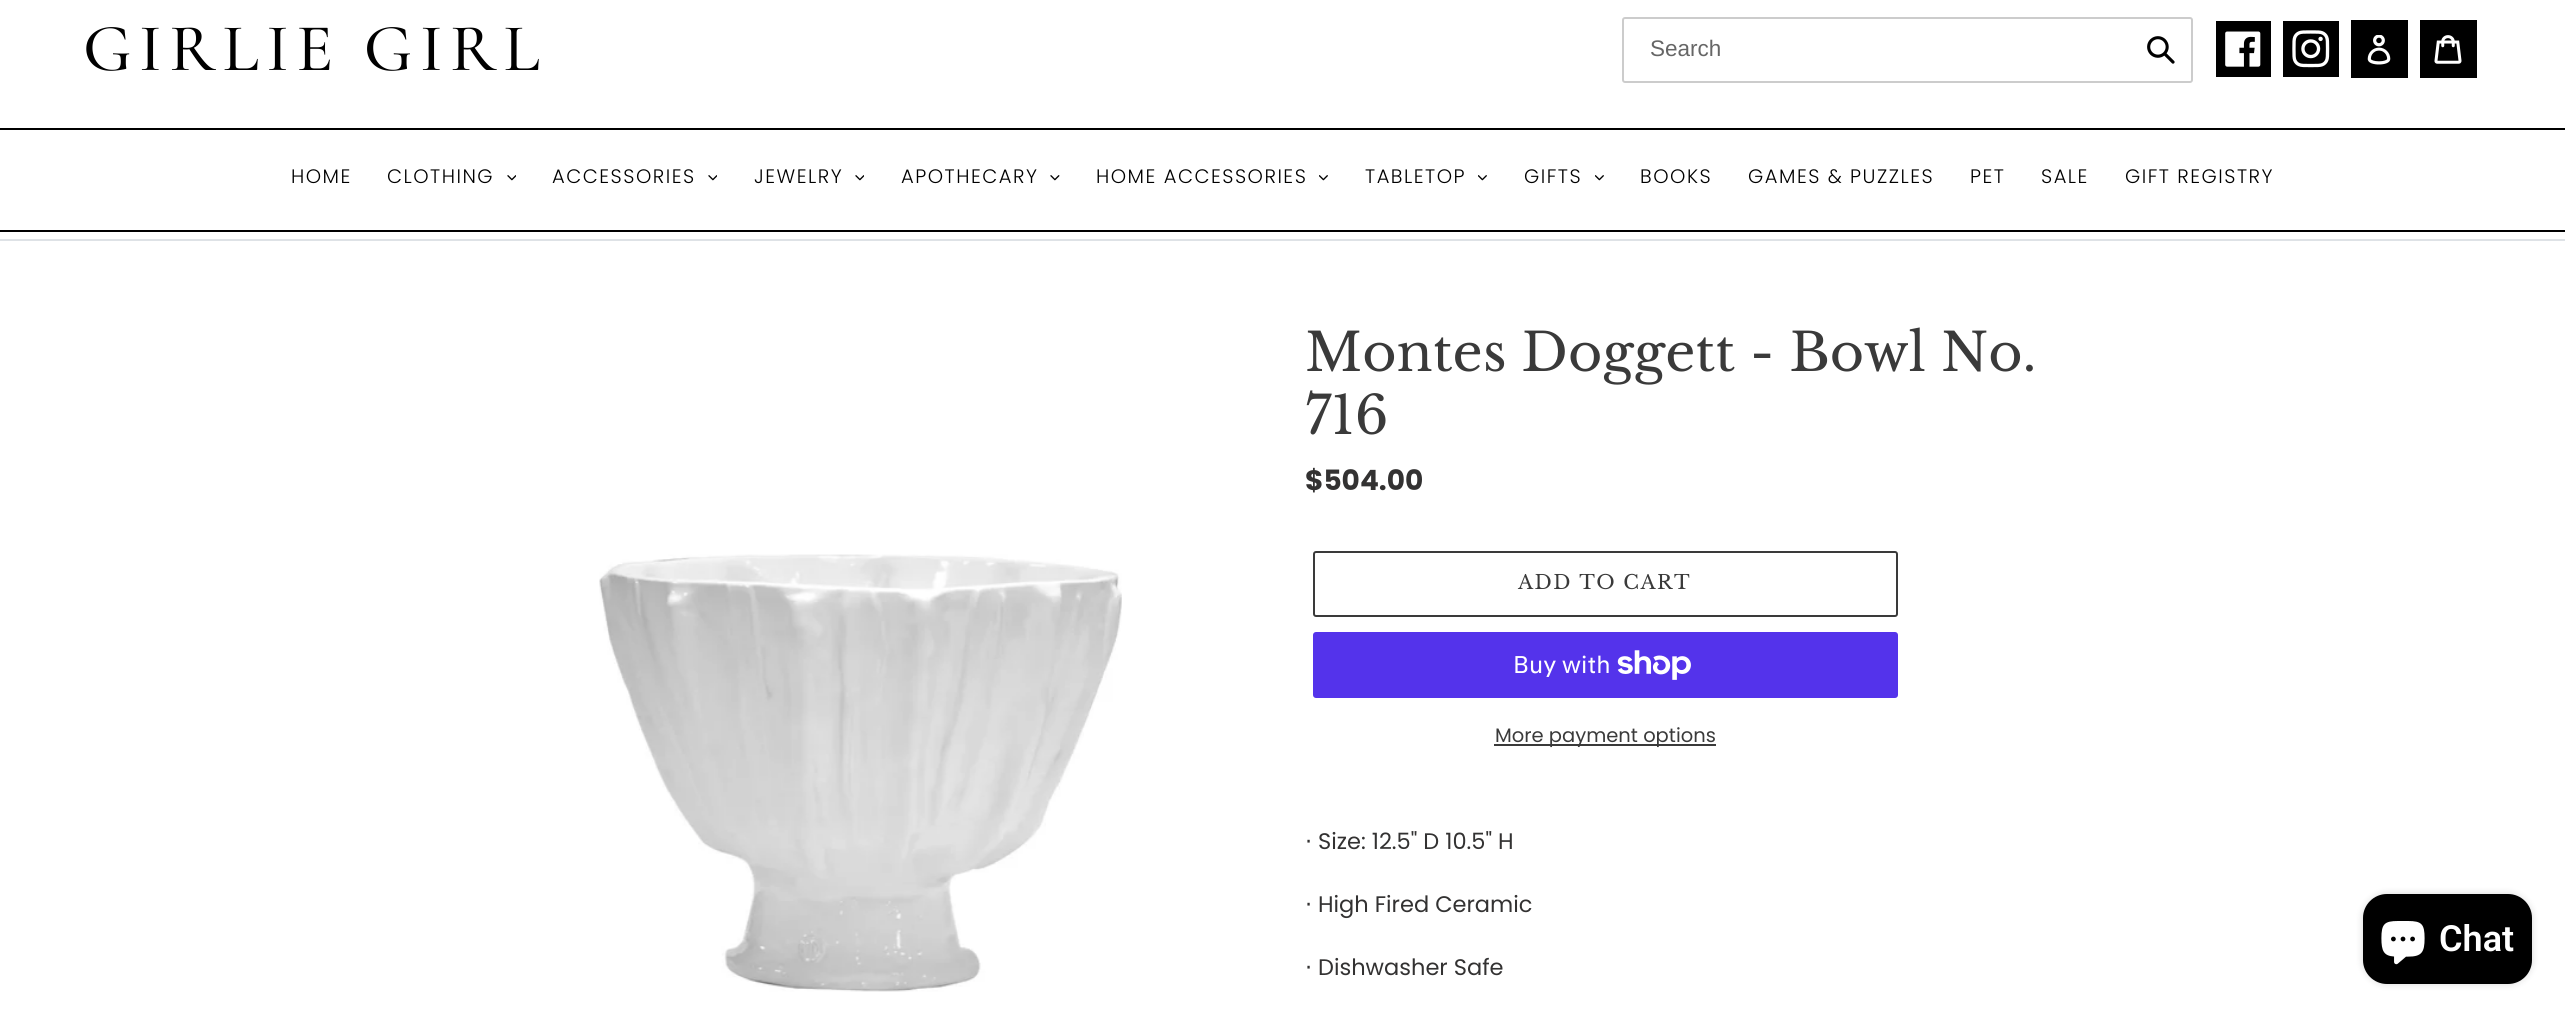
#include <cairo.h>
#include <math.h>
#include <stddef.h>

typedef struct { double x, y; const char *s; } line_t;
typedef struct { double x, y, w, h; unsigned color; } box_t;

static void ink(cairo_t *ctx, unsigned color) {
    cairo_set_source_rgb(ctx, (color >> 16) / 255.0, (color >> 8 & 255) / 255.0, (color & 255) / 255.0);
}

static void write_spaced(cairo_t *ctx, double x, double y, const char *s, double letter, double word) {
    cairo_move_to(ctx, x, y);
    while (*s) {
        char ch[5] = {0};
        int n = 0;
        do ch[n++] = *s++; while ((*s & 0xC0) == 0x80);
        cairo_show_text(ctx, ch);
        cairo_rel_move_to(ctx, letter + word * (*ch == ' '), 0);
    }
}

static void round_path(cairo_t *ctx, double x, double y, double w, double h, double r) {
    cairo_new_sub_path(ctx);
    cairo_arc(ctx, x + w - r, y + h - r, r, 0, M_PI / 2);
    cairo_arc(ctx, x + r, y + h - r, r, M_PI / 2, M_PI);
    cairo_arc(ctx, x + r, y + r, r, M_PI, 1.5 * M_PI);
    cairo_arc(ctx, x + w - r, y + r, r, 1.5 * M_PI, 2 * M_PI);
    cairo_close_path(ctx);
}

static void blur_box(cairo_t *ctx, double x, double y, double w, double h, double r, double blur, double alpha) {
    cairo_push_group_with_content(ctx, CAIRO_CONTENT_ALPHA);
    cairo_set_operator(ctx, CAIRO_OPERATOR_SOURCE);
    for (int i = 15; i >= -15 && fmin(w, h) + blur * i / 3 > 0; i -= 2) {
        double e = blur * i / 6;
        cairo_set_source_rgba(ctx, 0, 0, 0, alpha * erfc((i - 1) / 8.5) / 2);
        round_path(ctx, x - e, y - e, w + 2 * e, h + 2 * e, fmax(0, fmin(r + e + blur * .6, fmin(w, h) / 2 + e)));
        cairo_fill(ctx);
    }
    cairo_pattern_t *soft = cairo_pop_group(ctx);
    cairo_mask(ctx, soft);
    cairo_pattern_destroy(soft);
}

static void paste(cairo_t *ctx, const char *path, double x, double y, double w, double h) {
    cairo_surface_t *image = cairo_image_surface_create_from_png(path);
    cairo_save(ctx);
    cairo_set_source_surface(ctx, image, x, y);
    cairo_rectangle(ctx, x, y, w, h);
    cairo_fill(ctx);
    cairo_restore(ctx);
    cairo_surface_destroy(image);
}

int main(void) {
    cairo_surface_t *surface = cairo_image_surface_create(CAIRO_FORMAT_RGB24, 2565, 1015);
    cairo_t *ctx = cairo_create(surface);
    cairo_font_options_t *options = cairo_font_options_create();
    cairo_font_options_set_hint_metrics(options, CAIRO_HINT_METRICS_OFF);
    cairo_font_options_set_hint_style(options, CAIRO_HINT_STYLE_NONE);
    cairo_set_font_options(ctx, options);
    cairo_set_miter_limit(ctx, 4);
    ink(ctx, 0xFFFFFF);
    cairo_paint(ctx);
    cairo_select_font_face(ctx, "Cormorant Garamond Medium", CAIRO_FONT_SLANT_NORMAL, CAIRO_FONT_WEIGHT_NORMAL);
    cairo_set_font_size(ctx, 67.5);
    ink(ctx, 0x000000);
    write_spaced(ctx, 83, 70, "GIRLIE GIRL", 7.5, 0);
    round_path(ctx, 1623, 18, 569, 64, 2);
    ink(ctx, 0xCCCCCC);
    cairo_stroke(ctx);
    cairo_select_font_face(ctx, "Liberation Sans", CAIRO_FONT_SLANT_NORMAL, CAIRO_FONT_WEIGHT_NORMAL);
    cairo_set_font_size(ctx, 22.5);
    ink(ctx, 0x666666);
    cairo_move_to(ctx, 1650, 56);
    cairo_show_text(ctx, "Search");
    paste(ctx, "media/1.png", 2147, 36, 28, 28);
    ink(ctx, 0x000000);
    cairo_rectangle(ctx, 2216, 21, 55, 56);
    cairo_fill(ctx);
    paste(ctx, "media/2.png", 2225, 31, 36, 36);
    cairo_rectangle(ctx, 2283, 21, 56, 56);
    cairo_fill(ctx);
    paste(ctx, "media/3.png", 2292, 30, 38, 38);
    cairo_rectangle(ctx, 2351, 20, 57, 58);
    cairo_fill(ctx);
    paste(ctx, "media/4.png", 2367, 35, 24, 30);
    cairo_rectangle(ctx, 2420, 20, 57, 58);
    cairo_fill(ctx);
    paste(ctx, "media/5.png", 2434, 35, 28, 29);
    {
        static const box_t items[] = {
            {0, 239, 2565, 2, 0xDEE2E6},
            {0, 128, 2565, 2, 0x000000},
            {0, 230, 2565, 2, 0x000000},
        };
        for (size_t i = 0; i < sizeof items / sizeof *items; i++) {
            ink(ctx, items[i].color);
            cairo_rectangle(ctx, items[i].x, items[i].y, items[i].w, items[i].h);
            cairo_fill(ctx);
        }
    }
    cairo_select_font_face(ctx, "Poppins Light", CAIRO_FONT_SLANT_NORMAL, CAIRO_FONT_WEIGHT_NORMAL);
    cairo_set_font_size(ctx, 19.5);
    write_spaced(ctx, 291, 183, "HOME", 1.5, 0);
    write_spaced(ctx, 387, 183, "CLOTHING", 1.5, 0);
    paste(ctx, "media/6.png", 507, 175, 9, 6);
    write_spaced(ctx, 552, 183, "ACCESSORIES", 1.5, 0);
    paste(ctx, "media/6.png", 708, 175, 9, 6);
    write_spaced(ctx, 754, 183, "JEWELRY", 1.5, 0);
    paste(ctx, "media/6.png", 855, 175, 9, 6);
    write_spaced(ctx, 901, 183, "APOTHECARY", 1.5, 0);
    paste(ctx, "media/7.png", 1050, 175, 10, 6);
    write_spaced(ctx, 1096, 183, "HOME ACCESSORIES", 1.5, 0);
    paste(ctx, "media/8.png", 1319, 175, 9, 6);
    write_spaced(ctx, 1365, 183, "TABLETOP", 1.5, 0);
    paste(ctx, "media/8.png", 1478, 175, 9, 6);
    write_spaced(ctx, 1524, 183, "GIFTS", 1.5, 0);
    paste(ctx, "media/8.png", 1595, 175, 9, 6);
    {
        static const line_t items[] = {
            {1640, 183, "BOOKS"},
            {1748, 183, "GAMES & PUZZLES"},
            {1970, 183, "PET"},
            {2041, 183, "SALE"},
            {2125, 183, "GIFT REGISTRY"},
        };
        for (size_t i = 0; i < sizeof items / sizeof *items; i++) {
            write_spaced(ctx, items[i].x, items[i].y, items[i].s, 1.5, 0);
        }
    }
    paste(ctx, "media/9.png", 599, 554, 523, 438);
    cairo_select_font_face(ctx, "Libre Baskerville", CAIRO_FONT_SLANT_NORMAL, CAIRO_FONT_WEIGHT_NORMAL);
    cairo_set_font_size(ctx, 52.5);
    ink(ctx, 0x3A3A3A);
    cairo_move_to(ctx, 1305, 371);
    cairo_show_text(ctx, "Montes Doggett - Bowl No.");
    cairo_move_to(ctx, 1305, 434);
    cairo_show_text(ctx, "716");
    cairo_select_font_face(ctx, "Poppins", CAIRO_FONT_SLANT_NORMAL, CAIRO_FONT_WEIGHT_BOLD);
    cairo_set_font_size(ctx, 28);
    ink(ctx, 0x333232);
    cairo_move_to(ctx, 1305, 490);
    cairo_show_text(ctx, "$504.00");
    round_path(ctx, 1314, 552, 583, 64, 2);
    ink(ctx, 0x3A3A3A);
    cairo_stroke(ctx);
    cairo_select_font_face(ctx, "Libre Baskerville", CAIRO_FONT_SLANT_NORMAL, CAIRO_FONT_WEIGHT_NORMAL);
    cairo_set_font_size(ctx, 19.5);
    write_spaced(ctx, 1518, 589, "ADD TO CART", 1.5, 0);
    ink(ctx, 0x5433EB);
    round_path(ctx, 1313, 632, 585, 66, 3);
    cairo_fill(ctx);
    cairo_select_font_face(ctx, "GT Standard", CAIRO_FONT_SLANT_NORMAL, CAIRO_FONT_WEIGHT_NORMAL);
    cairo_set_font_size(ctx, 24);
    ink(ctx, 0xFFFFFF);
    cairo_move_to(ctx, 1513, 673);
    cairo_show_text(ctx, "Buy with");
    paste(ctx, "media/10.png", 1617, 650, 74, 30);
    ink(ctx, 0x3A3A3A);
    cairo_rectangle(ctx, 1494, 744, 222, 2);
    cairo_fill(ctx);
    cairo_select_font_face(ctx, "Poppins", CAIRO_FONT_SLANT_NORMAL, CAIRO_FONT_WEIGHT_NORMAL);
    cairo_set_font_size(ctx, 19.5);
    cairo_move_to(ctx, 1495, 742);
    cairo_show_text(ctx, "More payment options");
    cairo_select_font_face(ctx, "DejaVu Sans", CAIRO_FONT_SLANT_NORMAL, CAIRO_FONT_WEIGHT_NORMAL);
    cairo_set_font_size(ctx, 22.5);
    ink(ctx, 0x333232);
    cairo_move_to(ctx, 1305, 849);
    cairo_show_text(ctx, "⋅");
    cairo_select_font_face(ctx, "Poppins", CAIRO_FONT_SLANT_NORMAL, CAIRO_FONT_WEIGHT_NORMAL);
    cairo_move_to(ctx, 1318, 849);
    cairo_show_text(ctx, "Size: 12.5\" D 10.5\" H");
    cairo_select_font_face(ctx, "DejaVu Sans", CAIRO_FONT_SLANT_NORMAL, CAIRO_FONT_WEIGHT_NORMAL);
    cairo_move_to(ctx, 1305, 912);
    cairo_show_text(ctx, "⋅");
    cairo_select_font_face(ctx, "Poppins", CAIRO_FONT_SLANT_NORMAL, CAIRO_FONT_WEIGHT_NORMAL);
    cairo_move_to(ctx, 1318, 912);
    cairo_show_text(ctx, "High Fired Ceramic");
    cairo_select_font_face(ctx, "DejaVu Sans", CAIRO_FONT_SLANT_NORMAL, CAIRO_FONT_WEIGHT_NORMAL);
    cairo_move_to(ctx, 1305, 975);
    cairo_show_text(ctx, "⋅");
    cairo_select_font_face(ctx, "Poppins", CAIRO_FONT_SLANT_NORMAL, CAIRO_FONT_WEIGHT_NORMAL);
    cairo_move_to(ctx, 1318, 975);
    cairo_show_text(ctx, "Dishwasher Safe");
    ink(ctx, 0x000000);
    blur_box(ctx, 2363, 894, 169, 90, 24, 4, 0.15);
    ink(ctx, 0x000000);
    round_path(ctx, 2363, 894, 169, 90, 24);
    cairo_fill(ctx);
    paste(ctx, "media/11.png", 2381, 921, 44, 44);
    cairo_select_font_face(ctx, "Roboto SemiBold", CAIRO_FONT_SLANT_NORMAL, CAIRO_FONT_WEIGHT_NORMAL);
    cairo_set_font_size(ctx, 36);
    ink(ctx, 0xFFFFFF);
    cairo_move_to(ctx, 2439, 951);
    cairo_show_text(ctx, "Chat");
    cairo_surface_write_to_png(surface, "image.png");
    cairo_font_options_destroy(options);
    cairo_destroy(ctx);
    cairo_surface_destroy(surface);
    return 0;
}
